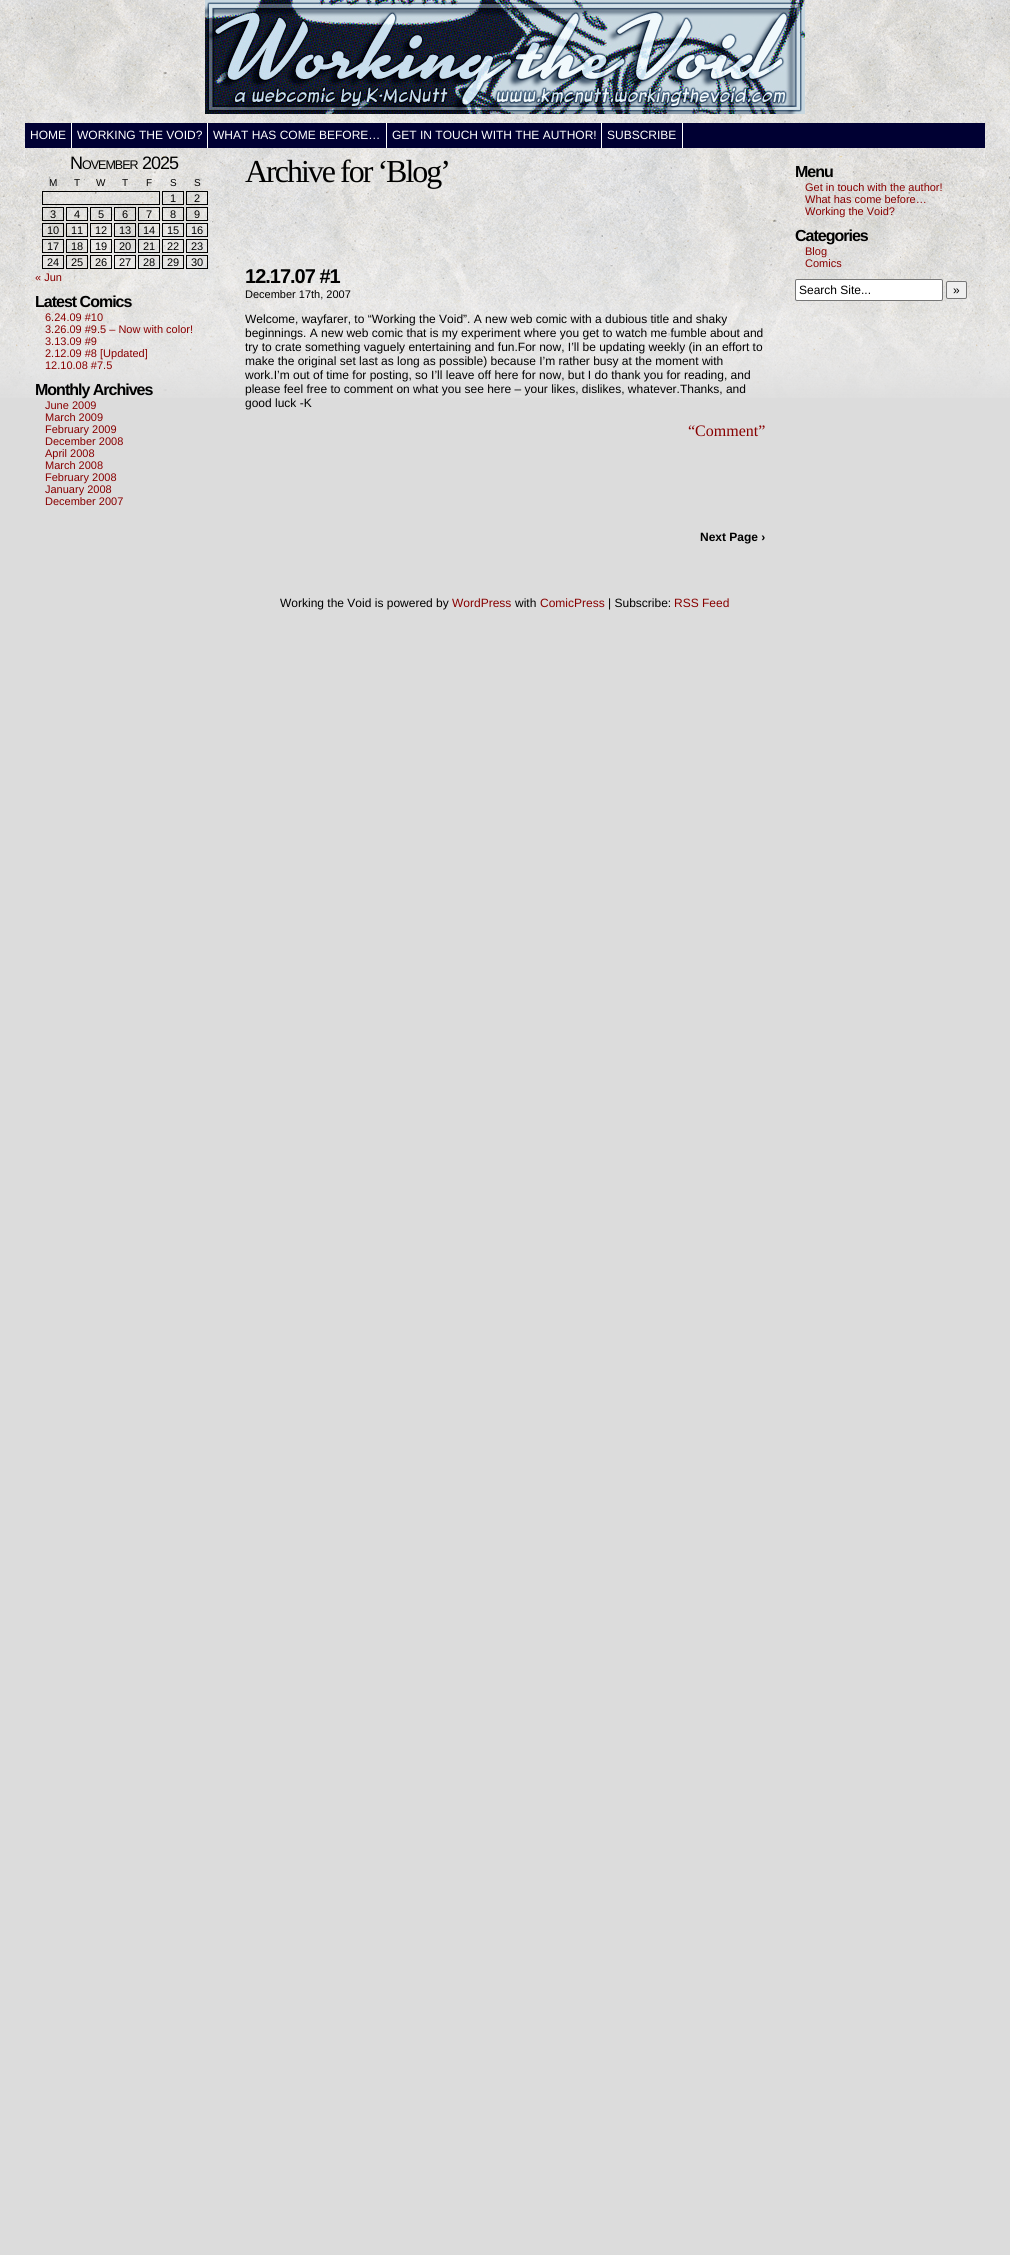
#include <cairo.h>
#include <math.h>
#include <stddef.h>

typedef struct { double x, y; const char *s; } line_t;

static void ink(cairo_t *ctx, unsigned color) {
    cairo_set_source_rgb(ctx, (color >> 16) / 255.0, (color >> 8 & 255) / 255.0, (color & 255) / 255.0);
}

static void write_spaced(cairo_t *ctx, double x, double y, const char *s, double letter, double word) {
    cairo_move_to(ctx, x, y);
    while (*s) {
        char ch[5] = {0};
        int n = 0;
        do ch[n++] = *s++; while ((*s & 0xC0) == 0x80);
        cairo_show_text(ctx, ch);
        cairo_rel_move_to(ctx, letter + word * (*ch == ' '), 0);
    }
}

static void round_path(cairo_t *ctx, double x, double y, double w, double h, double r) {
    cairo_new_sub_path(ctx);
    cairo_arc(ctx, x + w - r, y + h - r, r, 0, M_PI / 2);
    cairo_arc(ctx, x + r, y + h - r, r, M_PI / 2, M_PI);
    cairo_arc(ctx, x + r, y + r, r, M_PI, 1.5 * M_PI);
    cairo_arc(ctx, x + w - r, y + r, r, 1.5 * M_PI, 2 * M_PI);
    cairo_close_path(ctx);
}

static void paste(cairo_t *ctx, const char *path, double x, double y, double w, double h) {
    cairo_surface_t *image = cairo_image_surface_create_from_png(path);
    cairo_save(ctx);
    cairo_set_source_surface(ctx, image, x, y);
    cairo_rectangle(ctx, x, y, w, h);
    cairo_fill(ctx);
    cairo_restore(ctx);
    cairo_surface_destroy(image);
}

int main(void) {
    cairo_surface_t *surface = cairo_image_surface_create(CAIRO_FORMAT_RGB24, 1010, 2255);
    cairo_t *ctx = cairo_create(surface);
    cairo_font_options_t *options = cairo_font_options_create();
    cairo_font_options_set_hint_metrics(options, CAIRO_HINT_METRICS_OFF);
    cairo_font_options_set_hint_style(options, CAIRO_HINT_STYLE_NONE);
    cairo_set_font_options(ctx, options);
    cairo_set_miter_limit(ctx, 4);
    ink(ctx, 0xDCDCDC);
    cairo_paint(ctx);
    paste(ctx, "media/1.png", 0, 0, 1010, 398);
    paste(ctx, "media/2.png", 205, 0, 600, 114);
    ink(ctx, 0x000033);
    cairo_rectangle(ctx, 25, 123, 960, 25);
    cairo_fill(ctx);
    ink(ctx, 0xFFFFFF);
    cairo_rectangle(ctx, 71, 123, 1, 25);
    cairo_fill(ctx);
    cairo_select_font_face(ctx, "Liberation Sans", CAIRO_FONT_SLANT_NORMAL, CAIRO_FONT_WEIGHT_NORMAL);
    cairo_set_font_size(ctx, 12);
    cairo_move_to(ctx, 30, 139);
    cairo_show_text(ctx, "HOME");
    cairo_rectangle(ctx, 207, 123, 1, 25);
    cairo_fill(ctx);
    cairo_move_to(ctx, 77, 139);
    cairo_show_text(ctx, "WORKING THE VOID?");
    cairo_rectangle(ctx, 386, 123, 1, 25);
    cairo_fill(ctx);
    cairo_move_to(ctx, 213, 139);
    cairo_show_text(ctx, "WHAT HAS COME BEFORE…");
    cairo_rectangle(ctx, 601, 123, 1, 25);
    cairo_fill(ctx);
    cairo_move_to(ctx, 392, 139);
    cairo_show_text(ctx, "GET IN TOUCH WITH THE AUTHOR!");
    cairo_rectangle(ctx, 682, 123, 1, 25);
    cairo_fill(ctx);
    cairo_move_to(ctx, 607, 139);
    cairo_show_text(ctx, "SUBSCRIBE");
    cairo_set_font_size(ctx, 18);
    ink(ctx, 0x000000);
    write_spaced(ctx, 70, 169, "N", -1, 0);
    cairo_set_font_size(ctx, 12.5);
    write_spaced(ctx, 82, 169, "OVEMBER", -1, 0);
    cairo_set_font_size(ctx, 18);
    write_spaced(ctx, 142, 169, "2025", -1, 0);
    cairo_set_font_size(ctx, 10);
    {
        static const line_t items[] = {
            {49, 186, "M"},
            {74, 186, "T"},
            {96, 186, "W"},
            {122, 186, "T"},
            {146, 186, "F"},
            {170, 186, "S"},
            {194, 186, "S"},
        };
        for (size_t i = 0; i < sizeof items / sizeof *items; i++) {
            cairo_move_to(ctx, items[i].x, items[i].y);
            cairo_show_text(ctx, items[i].s);
        }
    }
    cairo_rectangle(ctx, 42.5, 191.5, 117, 13);
    cairo_set_line_width(ctx, 1);
    cairo_stroke(ctx);
    cairo_rectangle(ctx, 162.5, 191.5, 21, 13);
    cairo_stroke(ctx);
    cairo_set_font_size(ctx, 11);
    cairo_move_to(ctx, 170, 202);
    cairo_show_text(ctx, "1");
    cairo_rectangle(ctx, 186.5, 191.5, 21, 13);
    cairo_stroke(ctx);
    cairo_move_to(ctx, 194, 202);
    cairo_show_text(ctx, "2");
    cairo_rectangle(ctx, 42.5, 207.5, 21, 13);
    cairo_stroke(ctx);
    cairo_move_to(ctx, 50, 218);
    cairo_show_text(ctx, "3");
    cairo_rectangle(ctx, 66.5, 207.5, 21, 13);
    cairo_stroke(ctx);
    cairo_move_to(ctx, 74, 218);
    cairo_show_text(ctx, "4");
    cairo_rectangle(ctx, 90.5, 207.5, 21, 13);
    cairo_stroke(ctx);
    cairo_move_to(ctx, 98, 218);
    cairo_show_text(ctx, "5");
    cairo_rectangle(ctx, 114.5, 207.5, 21, 13);
    cairo_stroke(ctx);
    cairo_move_to(ctx, 122, 218);
    cairo_show_text(ctx, "6");
    cairo_rectangle(ctx, 138.5, 207.5, 21, 13);
    cairo_stroke(ctx);
    cairo_move_to(ctx, 146, 218);
    cairo_show_text(ctx, "7");
    cairo_rectangle(ctx, 162.5, 207.5, 21, 13);
    cairo_stroke(ctx);
    cairo_move_to(ctx, 170, 218);
    cairo_show_text(ctx, "8");
    cairo_rectangle(ctx, 186.5, 207.5, 21, 13);
    cairo_stroke(ctx);
    cairo_move_to(ctx, 194, 218);
    cairo_show_text(ctx, "9");
    cairo_rectangle(ctx, 42.5, 223.5, 21, 13);
    cairo_stroke(ctx);
    cairo_move_to(ctx, 47, 234);
    cairo_show_text(ctx, "10");
    cairo_rectangle(ctx, 66.5, 223.5, 21, 13);
    cairo_stroke(ctx);
    cairo_move_to(ctx, 71, 234);
    cairo_show_text(ctx, "11");
    cairo_rectangle(ctx, 90.5, 223.5, 21, 13);
    cairo_stroke(ctx);
    cairo_move_to(ctx, 95, 234);
    cairo_show_text(ctx, "12");
    cairo_rectangle(ctx, 114.5, 223.5, 21, 13);
    cairo_stroke(ctx);
    cairo_move_to(ctx, 119, 234);
    cairo_show_text(ctx, "13");
    cairo_rectangle(ctx, 138.5, 223.5, 21, 13);
    cairo_stroke(ctx);
    cairo_move_to(ctx, 143, 234);
    cairo_show_text(ctx, "14");
    cairo_rectangle(ctx, 162.5, 223.5, 21, 13);
    cairo_stroke(ctx);
    cairo_move_to(ctx, 167, 234);
    cairo_show_text(ctx, "15");
    cairo_rectangle(ctx, 186.5, 223.5, 21, 13);
    cairo_stroke(ctx);
    cairo_move_to(ctx, 191, 234);
    cairo_show_text(ctx, "16");
    cairo_rectangle(ctx, 42.5, 239.5, 21, 13);
    cairo_stroke(ctx);
    cairo_move_to(ctx, 47, 250);
    cairo_show_text(ctx, "17");
    cairo_rectangle(ctx, 66.5, 239.5, 21, 13);
    cairo_stroke(ctx);
    cairo_move_to(ctx, 71, 250);
    cairo_show_text(ctx, "18");
    cairo_rectangle(ctx, 90.5, 239.5, 21, 13);
    cairo_stroke(ctx);
    cairo_move_to(ctx, 95, 250);
    cairo_show_text(ctx, "19");
    cairo_rectangle(ctx, 114.5, 239.5, 21, 13);
    cairo_stroke(ctx);
    cairo_move_to(ctx, 119, 250);
    cairo_show_text(ctx, "20");
    cairo_rectangle(ctx, 138.5, 239.5, 21, 13);
    cairo_stroke(ctx);
    cairo_move_to(ctx, 143, 250);
    cairo_show_text(ctx, "21");
    cairo_rectangle(ctx, 162.5, 239.5, 21, 13);
    cairo_stroke(ctx);
    cairo_move_to(ctx, 167, 250);
    cairo_show_text(ctx, "22");
    cairo_rectangle(ctx, 186.5, 239.5, 21, 13);
    cairo_stroke(ctx);
    cairo_move_to(ctx, 191, 250);
    cairo_show_text(ctx, "23");
    cairo_rectangle(ctx, 42.5, 255.5, 21, 13);
    cairo_stroke(ctx);
    cairo_move_to(ctx, 47, 266);
    cairo_show_text(ctx, "24");
    cairo_rectangle(ctx, 66.5, 255.5, 21, 13);
    cairo_stroke(ctx);
    cairo_move_to(ctx, 71, 266);
    cairo_show_text(ctx, "25");
    cairo_rectangle(ctx, 90.5, 255.5, 21, 13);
    cairo_stroke(ctx);
    cairo_move_to(ctx, 95, 266);
    cairo_show_text(ctx, "26");
    cairo_rectangle(ctx, 114.5, 255.5, 21, 13);
    cairo_stroke(ctx);
    cairo_move_to(ctx, 119, 266);
    cairo_show_text(ctx, "27");
    cairo_rectangle(ctx, 138.5, 255.5, 21, 13);
    cairo_stroke(ctx);
    cairo_move_to(ctx, 143, 266);
    cairo_show_text(ctx, "28");
    cairo_rectangle(ctx, 162.5, 255.5, 21, 13);
    cairo_stroke(ctx);
    cairo_move_to(ctx, 167, 266);
    cairo_show_text(ctx, "29");
    cairo_rectangle(ctx, 186.5, 255.5, 21, 13);
    cairo_stroke(ctx);
    cairo_move_to(ctx, 191, 266);
    cairo_show_text(ctx, "30");
    ink(ctx, 0x880000);
    cairo_move_to(ctx, 35, 281);
    cairo_show_text(ctx, "« Jun");
    cairo_select_font_face(ctx, "Liberation Sans", CAIRO_FONT_SLANT_NORMAL, CAIRO_FONT_WEIGHT_BOLD);
    cairo_set_font_size(ctx, 16);
    ink(ctx, 0x000000);
    write_spaced(ctx, 35, 307, "Latest Comics", -1, 0);
    cairo_select_font_face(ctx, "Liberation Sans", CAIRO_FONT_SLANT_NORMAL, CAIRO_FONT_WEIGHT_NORMAL);
    cairo_set_font_size(ctx, 11);
    ink(ctx, 0x880000);
    {
        static const line_t items[] = {
            {45, 321, "6.24.09 #10"},
            {45, 333, "3.26.09 #9.5 – Now with color!"},
            {45, 345, "3.13.09 #9"},
            {45, 357, "2.12.09 #8 [Updated]"},
            {45, 369, "12.10.08 #7.5"},
        };
        for (size_t i = 0; i < sizeof items / sizeof *items; i++) {
            cairo_move_to(ctx, items[i].x, items[i].y);
            cairo_show_text(ctx, items[i].s);
        }
    }
    cairo_select_font_face(ctx, "Liberation Sans", CAIRO_FONT_SLANT_NORMAL, CAIRO_FONT_WEIGHT_BOLD);
    cairo_set_font_size(ctx, 16);
    ink(ctx, 0x000000);
    write_spaced(ctx, 35, 395, "Monthly Archives", -1, 0);
    cairo_select_font_face(ctx, "Liberation Sans", CAIRO_FONT_SLANT_NORMAL, CAIRO_FONT_WEIGHT_NORMAL);
    cairo_set_font_size(ctx, 11);
    ink(ctx, 0x880000);
    {
        static const line_t items[] = {
            {45, 409, "June 2009"},
            {45, 421, "March 2009"},
            {45, 433, "February 2009"},
            {45, 445, "December 2008"},
            {45, 457, "April 2008"},
            {45, 469, "March 2008"},
            {45, 481, "February 2008"},
            {45, 493, "January 2008"},
            {45, 505, "December 2007"},
        };
        for (size_t i = 0; i < sizeof items / sizeof *items; i++) {
            cairo_move_to(ctx, items[i].x, items[i].y);
            cairo_show_text(ctx, items[i].s);
        }
    }
    cairo_select_font_face(ctx, "Liberation Serif", CAIRO_FONT_SLANT_NORMAL, CAIRO_FONT_WEIGHT_NORMAL);
    cairo_set_font_size(ctx, 32);
    ink(ctx, 0x000000);
    write_spaced(ctx, 245, 182, "Archive for ‘Blog’", -2, 0);
    cairo_select_font_face(ctx, "Liberation Sans", CAIRO_FONT_SLANT_NORMAL, CAIRO_FONT_WEIGHT_BOLD);
    cairo_set_font_size(ctx, 20);
    write_spaced(ctx, 245, 283, "12.17.07 #1", -1, 0);
    cairo_select_font_face(ctx, "Liberation Sans", CAIRO_FONT_SLANT_NORMAL, CAIRO_FONT_WEIGHT_NORMAL);
    cairo_set_font_size(ctx, 11);
    cairo_move_to(ctx, 245, 298);
    cairo_show_text(ctx, "December 17th, 2007");
    cairo_set_font_size(ctx, 12);
    {
        static const line_t items[] = {
            {245, 323, "Welcome, wayfarer, to “Working the Void”. A new web comic with a dubious title and shaky"},
            {245, 337, "beginnings. A new web comic that is my experiment where you get to watch me fumble about and"},
            {245, 351, "try to crate something vaguely entertaining and fun.For now, I’ll be updating weekly (in an effort to"},
            {245, 365, "make the original set last as long as possible) because I’m rather busy at the moment with"},
            {245, 379, "work.I’m out of time for posting, so I’ll leave off here for now, but I do thank you for reading, and"},
            {245, 393, "please feel free to comment on what you see here – your likes, dislikes, whatever.Thanks, and"},
            {245, 407, "good luck -K"},
        };
        for (size_t i = 0; i < sizeof items / sizeof *items; i++) {
            cairo_move_to(ctx, items[i].x, items[i].y);
            cairo_show_text(ctx, items[i].s);
        }
    }
    cairo_select_font_face(ctx, "Liberation Serif", CAIRO_FONT_SLANT_NORMAL, CAIRO_FONT_WEIGHT_NORMAL);
    cairo_set_font_size(ctx, 16);
    ink(ctx, 0x880000);
    cairo_move_to(ctx, 688, 436);
    cairo_show_text(ctx, "“Comment”");
    cairo_select_font_face(ctx, "Liberation Sans", CAIRO_FONT_SLANT_NORMAL, CAIRO_FONT_WEIGHT_BOLD);
    cairo_set_font_size(ctx, 12);
    ink(ctx, 0x000000);
    cairo_move_to(ctx, 700, 541);
    cairo_show_text(ctx, "Next Page ›");
    cairo_set_font_size(ctx, 16);
    write_spaced(ctx, 795, 177, "Menu", -1, 0);
    cairo_select_font_face(ctx, "Liberation Sans", CAIRO_FONT_SLANT_NORMAL, CAIRO_FONT_WEIGHT_NORMAL);
    cairo_set_font_size(ctx, 11);
    ink(ctx, 0x880000);
    {
        static const line_t items[] = {
            {805, 191, "Get in touch with the author!"},
            {805, 203, "What has come before…"},
            {805, 215, "Working the Void?"},
        };
        for (size_t i = 0; i < sizeof items / sizeof *items; i++) {
            cairo_move_to(ctx, items[i].x, items[i].y);
            cairo_show_text(ctx, items[i].s);
        }
    }
    cairo_select_font_face(ctx, "Liberation Sans", CAIRO_FONT_SLANT_NORMAL, CAIRO_FONT_WEIGHT_BOLD);
    cairo_set_font_size(ctx, 16);
    ink(ctx, 0x000000);
    write_spaced(ctx, 795, 241, "Categories", -1, 0);
    cairo_select_font_face(ctx, "Liberation Sans", CAIRO_FONT_SLANT_NORMAL, CAIRO_FONT_WEIGHT_NORMAL);
    cairo_set_font_size(ctx, 11);
    ink(ctx, 0x880000);
    cairo_move_to(ctx, 805, 255);
    cairo_show_text(ctx, "Blog");
    cairo_move_to(ctx, 805, 267);
    cairo_show_text(ctx, "Comics");
    ink(ctx, 0xFFFFFF);
    round_path(ctx, 795.5, 279.5, 147, 21, 1.5);
    cairo_fill_preserve(ctx);
    ink(ctx, 0x767676);
    cairo_stroke(ctx);
    cairo_set_font_size(ctx, 12);
    ink(ctx, 0x000000);
    cairo_move_to(ctx, 799, 294);
    cairo_show_text(ctx, "Search Site...");
    ink(ctx, 0xEFEFEF);
    round_path(ctx, 946.5, 281.5, 20, 17, 1.5);
    cairo_fill_preserve(ctx);
    ink(ctx, 0x767676);
    cairo_stroke(ctx);
    ink(ctx, 0x000000);
    cairo_move_to(ctx, 953, 294);
    cairo_show_text(ctx, "»");
    cairo_move_to(ctx, 280, 607);
    cairo_show_text(ctx, "Working the Void is powered by");
    ink(ctx, 0x880000);
    cairo_move_to(ctx, 452, 607);
    cairo_show_text(ctx, "WordPress");
    ink(ctx, 0x000000);
    cairo_move_to(ctx, 515, 607);
    cairo_show_text(ctx, "with");
    ink(ctx, 0x880000);
    cairo_move_to(ctx, 540, 607);
    cairo_show_text(ctx, "ComicPress");
    ink(ctx, 0x000000);
    cairo_move_to(ctx, 608, 607);
    cairo_show_text(ctx, "| Subscribe:");
    ink(ctx, 0x880000);
    cairo_move_to(ctx, 674, 607);
    cairo_show_text(ctx, "RSS Feed");
    cairo_surface_write_to_png(surface, "image.png");
    cairo_font_options_destroy(options);
    cairo_destroy(ctx);
    cairo_surface_destroy(surface);
    return 0;
}
